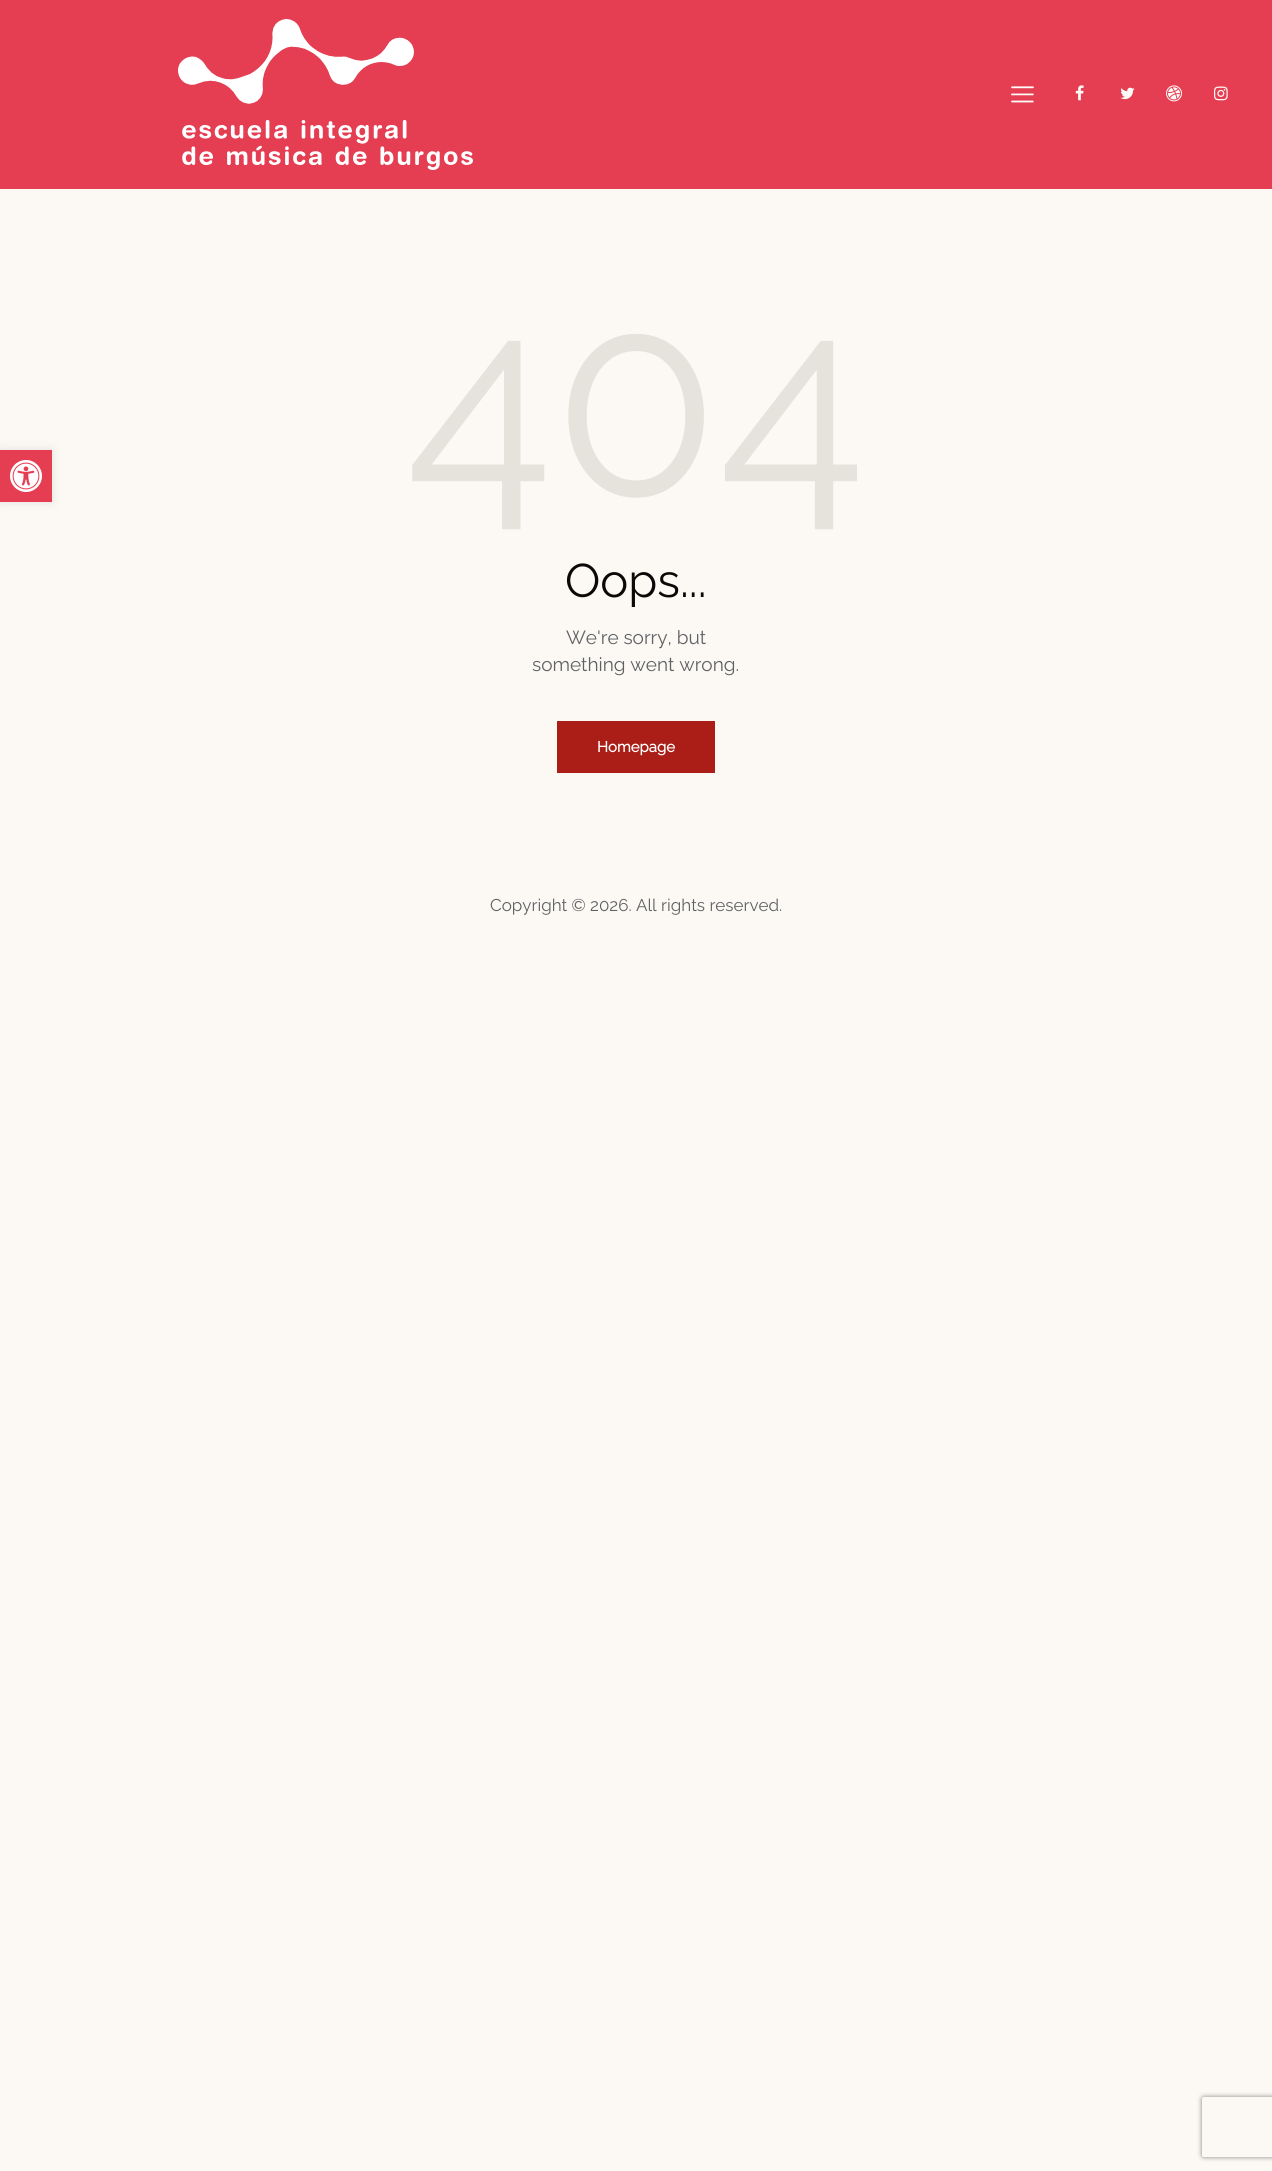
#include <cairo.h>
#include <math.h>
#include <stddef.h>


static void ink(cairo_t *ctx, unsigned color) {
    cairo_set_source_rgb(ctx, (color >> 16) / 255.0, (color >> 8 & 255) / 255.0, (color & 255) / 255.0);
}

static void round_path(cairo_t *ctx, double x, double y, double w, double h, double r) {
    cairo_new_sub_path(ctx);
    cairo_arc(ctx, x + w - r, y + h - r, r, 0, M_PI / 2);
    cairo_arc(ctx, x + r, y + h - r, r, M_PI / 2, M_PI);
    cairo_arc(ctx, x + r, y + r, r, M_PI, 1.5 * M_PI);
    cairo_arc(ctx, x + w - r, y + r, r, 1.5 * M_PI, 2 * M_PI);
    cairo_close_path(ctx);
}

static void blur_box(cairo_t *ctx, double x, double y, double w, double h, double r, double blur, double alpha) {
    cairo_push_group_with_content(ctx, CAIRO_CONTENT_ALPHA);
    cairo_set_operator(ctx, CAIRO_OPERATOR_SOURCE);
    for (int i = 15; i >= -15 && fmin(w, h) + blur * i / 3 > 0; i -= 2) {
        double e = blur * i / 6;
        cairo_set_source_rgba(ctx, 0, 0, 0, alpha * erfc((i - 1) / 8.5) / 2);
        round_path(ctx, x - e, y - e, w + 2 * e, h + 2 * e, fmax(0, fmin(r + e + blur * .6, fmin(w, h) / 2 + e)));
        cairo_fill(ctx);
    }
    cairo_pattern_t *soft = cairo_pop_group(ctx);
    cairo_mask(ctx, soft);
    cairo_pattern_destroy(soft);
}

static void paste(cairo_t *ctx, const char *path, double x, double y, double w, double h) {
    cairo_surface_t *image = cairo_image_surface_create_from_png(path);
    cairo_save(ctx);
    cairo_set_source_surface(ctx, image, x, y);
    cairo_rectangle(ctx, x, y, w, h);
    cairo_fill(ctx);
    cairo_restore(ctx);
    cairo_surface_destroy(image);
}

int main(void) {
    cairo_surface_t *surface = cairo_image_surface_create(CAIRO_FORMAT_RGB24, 1272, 2171);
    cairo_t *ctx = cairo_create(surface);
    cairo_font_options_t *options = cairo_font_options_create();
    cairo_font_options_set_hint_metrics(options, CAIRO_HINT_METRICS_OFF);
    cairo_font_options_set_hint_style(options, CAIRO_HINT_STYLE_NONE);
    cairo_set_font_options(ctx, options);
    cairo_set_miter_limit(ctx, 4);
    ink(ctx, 0xFCF9F4);
    cairo_paint(ctx);
    ink(ctx, 0x000000);
    blur_box(ctx, 0, 450, 52, 52, 0, 5, 0.1);
    ink(ctx, 0xE53E52);
    cairo_rectangle(ctx, 0, 450, 52, 52);
    cairo_fill(ctx);
    paste(ctx, "media/1.png", 10, 460, 32, 32);
    cairo_rectangle(ctx, 0, 0, 1272, 189);
    cairo_fill(ctx);
    paste(ctx, "media/2.png", 178, 19, 295, 151);
    paste(ctx, "media/3.png", 1011, 86, 23, 17);
    paste(ctx, "media/4.png", 1075, 85, 9, 16);
    paste(ctx, "media/5.png", 1120, 87, 15, 13);
    paste(ctx, "media/6.png", 1166, 85, 16, 17);
    paste(ctx, "media/7.png", 1214, 86, 14, 15);
    cairo_select_font_face(ctx, "Raleway Thin", CAIRO_FONT_SLANT_NORMAL, CAIRO_FONT_WEIGHT_NORMAL);
    cairo_set_font_size(ctx, 270);
    ink(ctx, 0xE5E3DC);
    cairo_move_to(ctx, 406, 495);
    cairo_show_text(ctx, "404");
    cairo_set_font_size(ctx, 47);
    ink(ctx, 0x0A0908);
    cairo_move_to(ctx, 565, 597);
    cairo_show_text(ctx, "Oops...");
    cairo_set_font_size(ctx, 19);
    ink(ctx, 0x5F6165);
    cairo_move_to(ctx, 566, 644);
    cairo_show_text(ctx, "We're sorry, but");
    cairo_move_to(ctx, 532, 671);
    cairo_show_text(ctx, "something went wrong.");
    ink(ctx, 0xAA1E17);
    cairo_rectangle(ctx, 557, 721, 158, 52);
    cairo_fill(ctx);
    cairo_select_font_face(ctx, "Raleway", CAIRO_FONT_SLANT_NORMAL, CAIRO_FONT_WEIGHT_BOLD);
    cairo_set_font_size(ctx, 15);
    ink(ctx, 0xFFFFFF);
    cairo_move_to(ctx, 597, 752);
    cairo_show_text(ctx, "Homepage");
    cairo_select_font_face(ctx, "Raleway Thin", CAIRO_FONT_SLANT_NORMAL, CAIRO_FONT_WEIGHT_NORMAL);
    cairo_set_font_size(ctx, 17);
    ink(ctx, 0x5F6165);
    cairo_move_to(ctx, 490, 911);
    cairo_show_text(ctx, "Copyright © 2026. All rights reserved.");
    cairo_save(ctx);
    cairo_set_fill_rule(ctx, CAIRO_FILL_RULE_EVEN_ODD);
    cairo_new_path(ctx);
    cairo_move_to(ctx, 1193, 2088);
    cairo_line_to(ctx, 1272, 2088);
    cairo_line_to(ctx, 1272, 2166);
    cairo_line_to(ctx, 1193, 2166);
    cairo_close_path(ctx);
    cairo_move_to(ctx, 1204, 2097);
    cairo_line_to(ctx, 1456, 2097);
    cairo_curve_to(ctx, 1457, 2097, 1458, 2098, 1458, 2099);
    cairo_line_to(ctx, 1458, 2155);
    cairo_curve_to(ctx, 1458, 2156, 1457, 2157, 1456, 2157);
    cairo_line_to(ctx, 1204, 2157);
    cairo_curve_to(ctx, 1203, 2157, 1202, 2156, 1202, 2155);
    cairo_line_to(ctx, 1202, 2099);
    cairo_curve_to(ctx, 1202, 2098, 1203, 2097, 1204, 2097);
    cairo_close_path(ctx);
    cairo_clip(ctx);
    ink(ctx, 0x808080);
    blur_box(ctx, 1202, 2097, 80, 60, 2, 2.5, 1);
    cairo_restore(ctx);
    cairo_surface_write_to_png(surface, "image.png");
    cairo_font_options_destroy(options);
    cairo_destroy(ctx);
    cairo_surface_destroy(surface);
    return 0;
}
